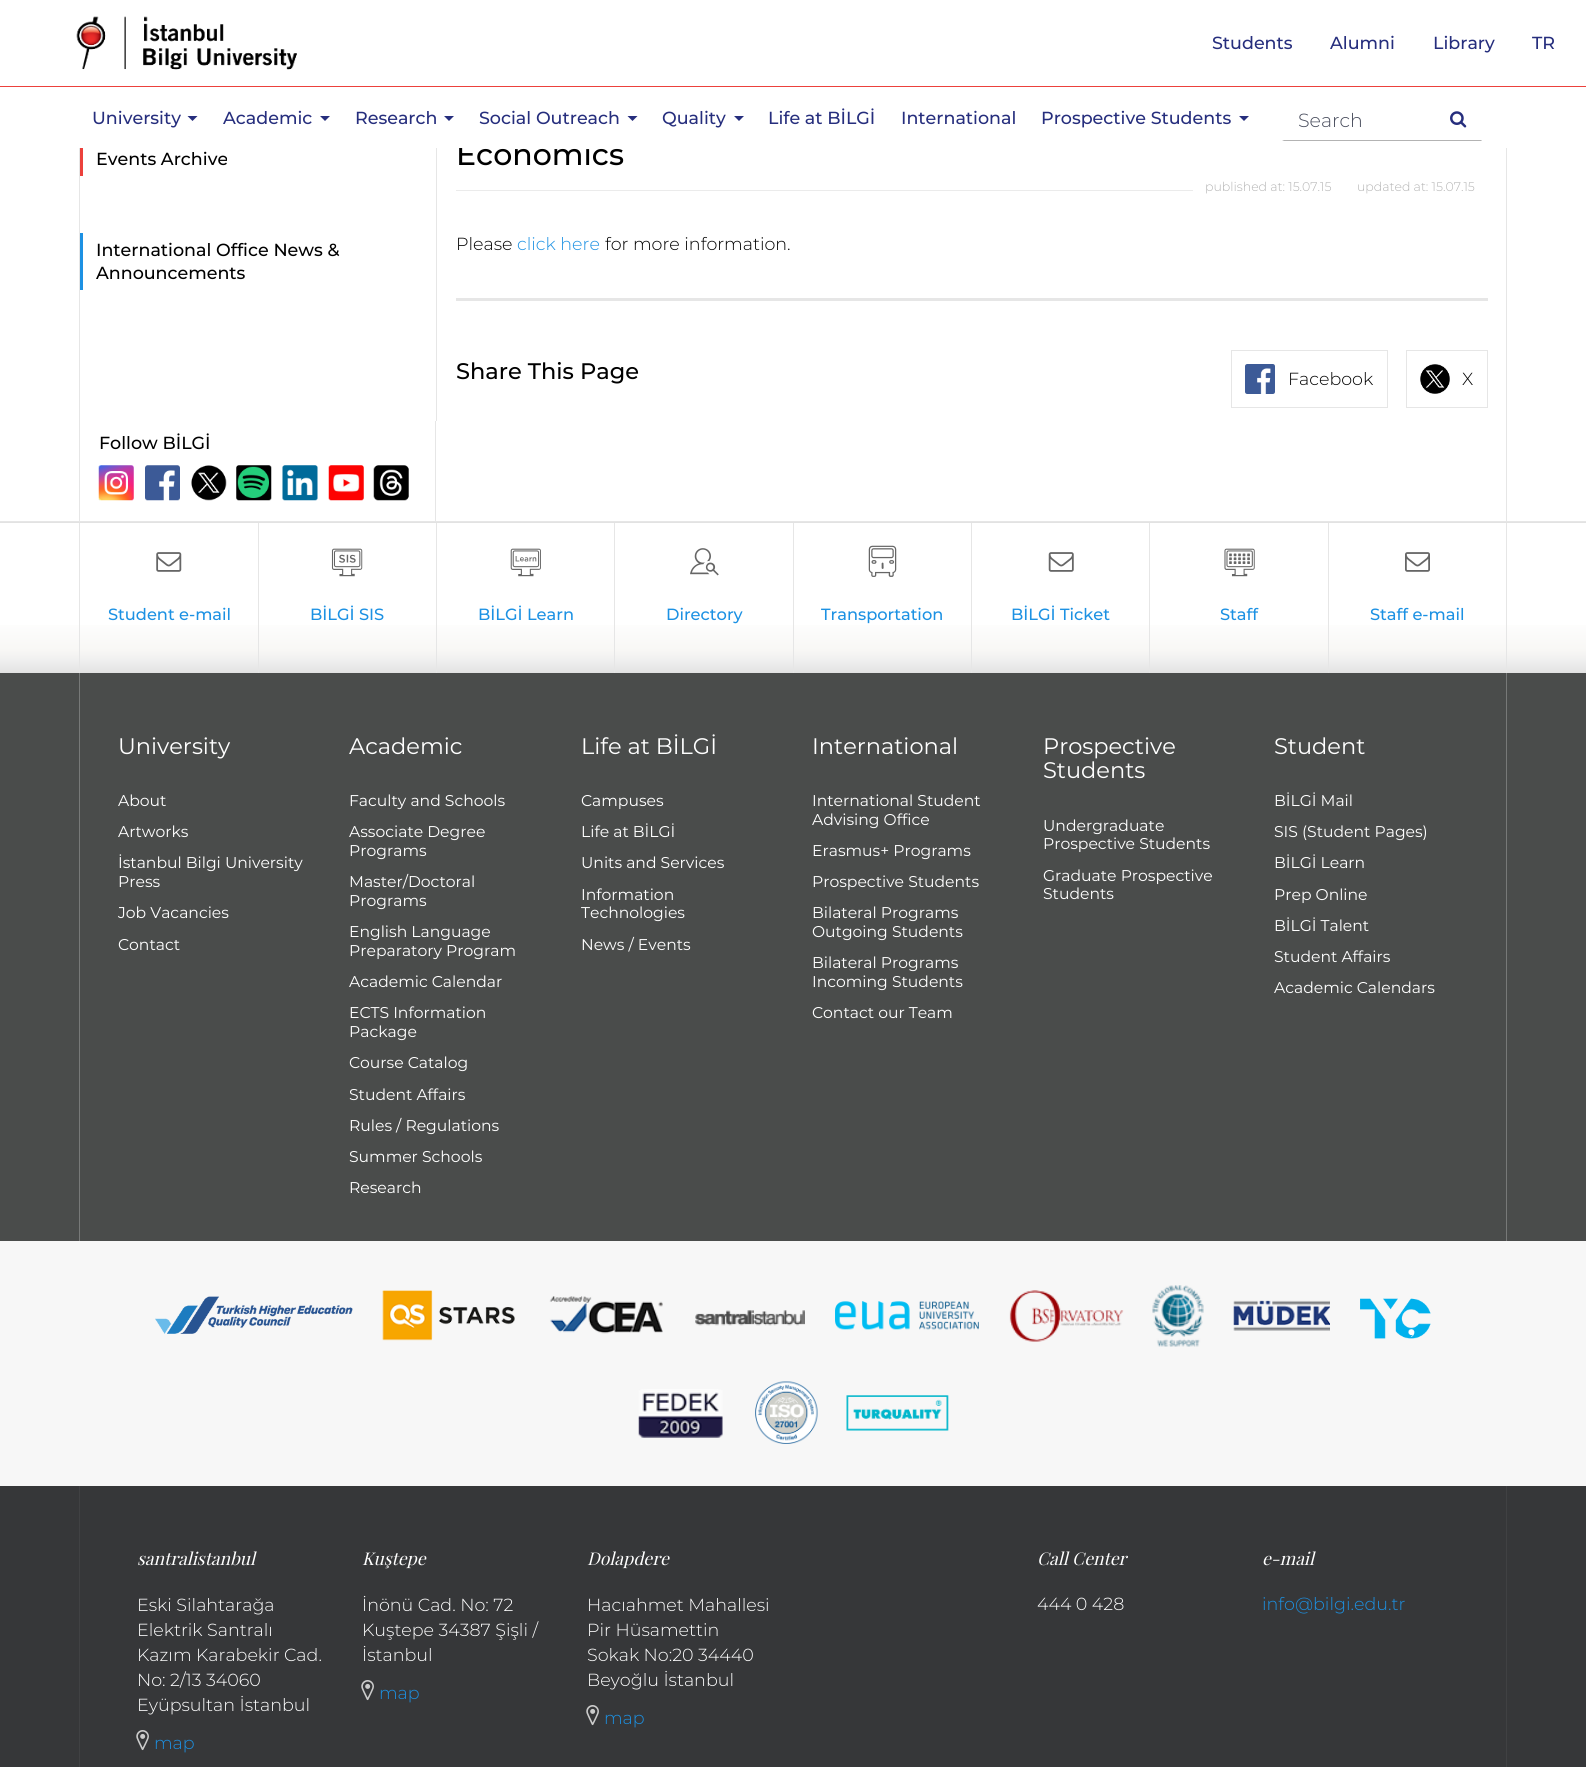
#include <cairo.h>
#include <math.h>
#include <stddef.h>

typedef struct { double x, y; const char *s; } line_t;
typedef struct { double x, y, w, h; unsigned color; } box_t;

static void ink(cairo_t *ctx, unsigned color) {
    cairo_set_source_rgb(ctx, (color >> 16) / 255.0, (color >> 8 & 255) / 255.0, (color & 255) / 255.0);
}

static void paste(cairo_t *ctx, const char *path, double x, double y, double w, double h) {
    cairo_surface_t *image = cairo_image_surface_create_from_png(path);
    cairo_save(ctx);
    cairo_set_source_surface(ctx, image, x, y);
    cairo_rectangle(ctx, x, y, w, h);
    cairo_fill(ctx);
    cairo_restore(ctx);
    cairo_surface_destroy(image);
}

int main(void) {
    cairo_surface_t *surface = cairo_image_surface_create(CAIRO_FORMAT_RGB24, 1586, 1767);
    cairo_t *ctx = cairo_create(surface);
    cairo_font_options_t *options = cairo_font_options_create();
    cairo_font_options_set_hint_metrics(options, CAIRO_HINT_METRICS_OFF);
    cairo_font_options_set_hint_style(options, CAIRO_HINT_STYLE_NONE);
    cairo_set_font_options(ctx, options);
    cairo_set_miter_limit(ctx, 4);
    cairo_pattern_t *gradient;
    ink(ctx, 0xFFFFFF);
    cairo_paint(ctx);
    ink(ctx, 0xEC413C);
    cairo_rectangle(ctx, 80, 141, 3, 35);
    cairo_fill(ctx);
    cairo_select_font_face(ctx, "Montserrat Medium", CAIRO_FONT_SLANT_NORMAL, CAIRO_FONT_WEIGHT_NORMAL);
    cairo_set_font_size(ctx, 30);
    ink(ctx, 0x000000);
    cairo_move_to(ctx, 456, 165);
    cairo_show_text(ctx, "Economics");
    ink(ctx, 0xFFFFFF);
    cairo_rectangle(ctx, 80, 141, 510, 7);
    cairo_fill(ctx);
    cairo_set_font_size(ctx, 17.5);
    ink(ctx, 0x262E7D);
    {
        static const line_t items[] = {
            {1212, 49, "Students"},
            {1330, 49, "Alumni"},
            {1433, 49, "Library"},
            {1532, 49, "TR"},
            {92, 124, "University"},
        };
        for (size_t i = 0; i < sizeof items / sizeof *items; i++) {
            cairo_move_to(ctx, items[i].x, items[i].y);
            cairo_show_text(ctx, items[i].s);
        }
    }
    cairo_new_path(ctx);
    cairo_move_to(ctx, 187.5, 116);
    cairo_line_to(ctx, 197.5, 116);
    cairo_line_to(ctx, 192.5, 121);
    cairo_close_path(ctx);
    cairo_fill(ctx);
    cairo_move_to(ctx, 223, 124);
    cairo_show_text(ctx, "Academic");
    cairo_new_path(ctx);
    cairo_move_to(ctx, 320, 116);
    cairo_line_to(ctx, 330, 116);
    cairo_line_to(ctx, 325, 121);
    cairo_close_path(ctx);
    cairo_fill(ctx);
    cairo_move_to(ctx, 355, 124);
    cairo_show_text(ctx, "Research");
    cairo_new_path(ctx);
    cairo_move_to(ctx, 444, 116);
    cairo_line_to(ctx, 454, 116);
    cairo_line_to(ctx, 449, 121);
    cairo_close_path(ctx);
    cairo_fill(ctx);
    cairo_move_to(ctx, 479, 124);
    cairo_show_text(ctx, "Social Outreach");
    cairo_new_path(ctx);
    cairo_move_to(ctx, 627.5, 116);
    cairo_line_to(ctx, 637.5, 116);
    cairo_line_to(ctx, 632.5, 121);
    cairo_close_path(ctx);
    cairo_fill(ctx);
    cairo_move_to(ctx, 662, 124);
    cairo_show_text(ctx, "Quality");
    cairo_new_path(ctx);
    cairo_move_to(ctx, 734, 116);
    cairo_line_to(ctx, 744, 116);
    cairo_line_to(ctx, 739, 121);
    cairo_close_path(ctx);
    cairo_fill(ctx);
    {
        static const line_t items[] = {
            {768, 124, "Life at BİLGİ"},
            {901, 124, "International"},
            {1041, 124, "Prospective Students"},
        };
        for (size_t i = 0; i < sizeof items / sizeof *items; i++) {
            cairo_move_to(ctx, items[i].x, items[i].y);
            cairo_show_text(ctx, items[i].s);
        }
    }
    cairo_new_path(ctx);
    cairo_move_to(ctx, 1239, 116);
    cairo_line_to(ctx, 1249, 116);
    cairo_line_to(ctx, 1244, 121);
    cairo_close_path(ctx);
    cairo_fill(ctx);
    ink(ctx, 0xEC413C);
    cairo_rectangle(ctx, 0, 86, 1586, 1);
    cairo_fill(ctx);
    paste(ctx, "media/1.png", 76, 16, 221, 54);
    ink(ctx, 0xB3B3B3);
    cairo_new_path(ctx);
    cairo_move_to(ctx, 1482, 141);
    cairo_line_to(ctx, 1282, 141);
    cairo_line_to(ctx, 1284, 140);
    cairo_line_to(ctx, 1481, 140);
    cairo_close_path(ctx);
    cairo_fill(ctx);
    cairo_select_font_face(ctx, "Montserrat Light", CAIRO_FONT_SLANT_NORMAL, CAIRO_FONT_WEIGHT_NORMAL);
    cairo_set_font_size(ctx, 19);
    ink(ctx, 0x494D5D);
    cairo_move_to(ctx, 1298, 127);
    cairo_show_text(ctx, "Search");
    paste(ctx, "media/2.png", 1450, 111, 17, 17);
    cairo_select_font_face(ctx, "Montserrat Medium", CAIRO_FONT_SLANT_NORMAL, CAIRO_FONT_WEIGHT_NORMAL);
    cairo_set_font_size(ctx, 17.5);
    ink(ctx, 0x000000);
    cairo_move_to(ctx, 96, 165);
    cairo_show_text(ctx, "Events Archive");
    ink(ctx, 0x1C91E3);
    cairo_rectangle(ctx, 80, 233, 3, 57);
    cairo_fill(ctx);
    ink(ctx, 0x000000);
    cairo_move_to(ctx, 96, 256);
    cairo_show_text(ctx, "International Office News &");
    cairo_move_to(ctx, 96, 279);
    cairo_show_text(ctx, "Announcements");
    ink(ctx, 0xE6E6E6);
    cairo_rectangle(ctx, 436, 148, 1, 273);
    cairo_fill(ctx);
    ink(ctx, 0xEBEBEB);
    cairo_rectangle(ctx, 456, 190, 737, 1);
    cairo_fill(ctx);
    cairo_select_font_face(ctx, "Montserrat Light", CAIRO_FONT_SLANT_NORMAL, CAIRO_FONT_WEIGHT_NORMAL);
    cairo_set_font_size(ctx, 12.5);
    ink(ctx, 0xB3B3B3);
    cairo_move_to(ctx, 1205, 191);
    cairo_show_text(ctx, "published at: 15.07.15");
    cairo_move_to(ctx, 1357, 191);
    cairo_show_text(ctx, "updated at: 15.07.15");
    cairo_set_font_size(ctx, 17.5);
    ink(ctx, 0x000000);
    cairo_move_to(ctx, 456, 250);
    cairo_show_text(ctx, "Please");
    ink(ctx, 0x1C91E3);
    cairo_move_to(ctx, 517, 250);
    cairo_show_text(ctx, "click here");
    ink(ctx, 0x000000);
    cairo_move_to(ctx, 605, 250);
    cairo_show_text(ctx, "for more information.");
    ink(ctx, 0xE6E6E6);
    cairo_rectangle(ctx, 456, 298, 1032, 3);
    cairo_fill(ctx);
    cairo_select_font_face(ctx, "Montserrat Medium", CAIRO_FONT_SLANT_NORMAL, CAIRO_FONT_WEIGHT_NORMAL);
    cairo_set_font_size(ctx, 22.5);
    ink(ctx, 0x000000);
    cairo_move_to(ctx, 456, 379);
    cairo_show_text(ctx, "Share This Page");
    cairo_rectangle(ctx, 1231.5, 350.5, 156, 57);
    ink(ctx, 0xE6E6E6);
    cairo_set_line_width(ctx, 1);
    cairo_stroke(ctx);
    paste(ctx, "media/3.png", 1245, 364, 30, 30);
    cairo_select_font_face(ctx, "Montserrat Light", CAIRO_FONT_SLANT_NORMAL, CAIRO_FONT_WEIGHT_NORMAL);
    cairo_set_font_size(ctx, 17.5);
    ink(ctx, 0x000000);
    cairo_move_to(ctx, 1288, 385);
    cairo_show_text(ctx, "Facebook");
    cairo_rectangle(ctx, 1406.5, 350.5, 81, 57);
    ink(ctx, 0xE6E6E6);
    cairo_stroke(ctx);
    paste(ctx, "media/4.png", 1420, 364, 30, 30);
    ink(ctx, 0x000000);
    cairo_move_to(ctx, 1462, 385);
    cairo_show_text(ctx, "X");
    {
        static const box_t items[] = {
            {1506, 148, 1, 373, 0xE6E6E6},
            {79, 148, 1, 373, 0xE6E6E6},
            {435, 421, 1, 100, 0xE6E6E6},
        };
        for (size_t i = 0; i < sizeof items / sizeof *items; i++) {
            ink(ctx, items[i].color);
            cairo_rectangle(ctx, items[i].x, items[i].y, items[i].w, items[i].h);
            cairo_fill(ctx);
        }
    }
    cairo_select_font_face(ctx, "Montserrat Medium", CAIRO_FONT_SLANT_NORMAL, CAIRO_FONT_WEIGHT_NORMAL);
    ink(ctx, 0x000000);
    cairo_move_to(ctx, 99, 449);
    cairo_show_text(ctx, "Follow BİLGİ");
    paste(ctx, "media/5.png", 98, 465, 36, 36);
    paste(ctx, "media/6.png", 145, 465, 35, 36);
    paste(ctx, "media/7.png", 191, 465, 36, 36);
    paste(ctx, "media/8.png", 236, 465, 36, 36);
    paste(ctx, "media/9.png", 282, 465, 36, 36);
    paste(ctx, "media/10.png", 328, 465, 36, 36);
    paste(ctx, "media/11.png", 373, 465, 36, 36);
    gradient = cairo_pattern_create_linear(793, 372, 793, 523);
    cairo_pattern_add_color_stop_rgba(gradient, 0, 0.996, 0.996, 0.996, 1);
    cairo_pattern_add_color_stop_rgba(gradient, 0.65, 0.996, 0.996, 0.996, 1);
    cairo_pattern_add_color_stop_rgba(gradient, 0.85, 0.973, 0.969, 0.961, 1);
    cairo_pattern_add_color_stop_rgba(gradient, 0.92, 0.937, 0.937, 0.937, 1);
    cairo_pattern_add_color_stop_rgba(gradient, 1, 0.886, 0.886, 0.886, 1);
    cairo_set_source(ctx, gradient);
    cairo_pattern_destroy(gradient);
    cairo_rectangle(ctx, 0, 522, 1586, 1);
    cairo_fill(ctx);
    gradient = cairo_pattern_create_linear(793, 522, 793, 673);
    cairo_pattern_add_color_stop_rgba(gradient, 0, 0.996, 0.996, 0.996, 1);
    cairo_pattern_add_color_stop_rgba(gradient, 0.65, 0.996, 0.996, 0.996, 1);
    cairo_pattern_add_color_stop_rgba(gradient, 0.85, 0.973, 0.969, 0.961, 1);
    cairo_pattern_add_color_stop_rgba(gradient, 0.92, 0.937, 0.937, 0.937, 1);
    cairo_pattern_add_color_stop_rgba(gradient, 1, 0.886, 0.886, 0.886, 1);
    cairo_set_source(ctx, gradient);
    cairo_pattern_destroy(gradient);
    cairo_rectangle(ctx, 0, 625, 1586, 48);
    cairo_fill(ctx);
    ink(ctx, 0xE6E6E6);
    cairo_rectangle(ctx, 0, 521, 1586, 1);
    cairo_fill(ctx);
    cairo_rectangle(ctx, 79, 523, 1, 150);
    cairo_fill(ctx);
    paste(ctx, "media/12.png", 156, 552, 26, 20);
    cairo_set_font_size(ctx, 16.25);
    ink(ctx, 0x1C91E3);
    cairo_move_to(ctx, 108, 620);
    cairo_show_text(ctx, "Student e-mail");
    ink(ctx, 0xE6E6E6);
    cairo_rectangle(ctx, 258, 523, 1, 150);
    cairo_fill(ctx);
    paste(ctx, "media/13.png", 331, 548, 32, 29);
    ink(ctx, 0x1C91E3);
    cairo_move_to(ctx, 310, 620);
    cairo_show_text(ctx, "BİLGİ SIS");
    ink(ctx, 0xE6E6E6);
    cairo_rectangle(ctx, 436, 523, 1, 150);
    cairo_fill(ctx);
    paste(ctx, "media/14.png", 510, 548, 31, 29);
    ink(ctx, 0x1C91E3);
    cairo_move_to(ctx, 478, 620);
    cairo_show_text(ctx, "BİLGİ Learn");
    ink(ctx, 0xE6E6E6);
    cairo_rectangle(ctx, 614, 523, 1, 150);
    cairo_fill(ctx);
    paste(ctx, "media/15.png", 690, 548, 29, 28);
    ink(ctx, 0x1C91E3);
    cairo_move_to(ctx, 666, 620);
    cairo_show_text(ctx, "Directory");
    ink(ctx, 0xE6E6E6);
    cairo_rectangle(ctx, 793, 523, 1, 150);
    cairo_fill(ctx);
    paste(ctx, "media/16.png", 868, 545, 29, 32);
    ink(ctx, 0x1C91E3);
    cairo_move_to(ctx, 821, 620);
    cairo_show_text(ctx, "Transportation");
    ink(ctx, 0xE6E6E6);
    cairo_rectangle(ctx, 971, 523, 1, 150);
    cairo_fill(ctx);
    paste(ctx, "media/17.png", 1048, 552, 26, 20);
    ink(ctx, 0x1C91E3);
    cairo_move_to(ctx, 1011, 620);
    cairo_show_text(ctx, "BİLGİ Ticket");
    ink(ctx, 0xE6E6E6);
    cairo_rectangle(ctx, 1149, 523, 1, 150);
    cairo_fill(ctx);
    paste(ctx, "media/18.png", 1224, 548, 31, 29);
    ink(ctx, 0x1C91E3);
    cairo_move_to(ctx, 1220, 620);
    cairo_show_text(ctx, "Staff");
    ink(ctx, 0xE6E6E6);
    cairo_rectangle(ctx, 1506, 523, 1, 150);
    cairo_fill(ctx);
    cairo_rectangle(ctx, 1328, 523, 1, 150);
    cairo_fill(ctx);
    paste(ctx, "media/19.png", 1405, 552, 25, 20);
    ink(ctx, 0x1C91E3);
    cairo_move_to(ctx, 1370, 620);
    cairo_show_text(ctx, "Staff e-mail");
    {
        static const box_t items[] = {
            {0, 673, 1586, 568, 0x4A4C4B},
            {1506, 673, 1, 568, 0x777978},
            {79, 673, 1, 568, 0x777978},
        };
        for (size_t i = 0; i < sizeof items / sizeof *items; i++) {
            ink(ctx, items[i].color);
            cairo_rectangle(ctx, items[i].x, items[i].y, items[i].w, items[i].h);
            cairo_fill(ctx);
        }
    }
    cairo_select_font_face(ctx, "Montserrat", CAIRO_FONT_SLANT_NORMAL, CAIRO_FONT_WEIGHT_NORMAL);
    cairo_set_font_size(ctx, 22.5);
    ink(ctx, 0xFFFFFF);
    cairo_move_to(ctx, 118, 754);
    cairo_show_text(ctx, "University");
    cairo_set_font_size(ctx, 15.6);
    {
        static const line_t items[] = {
            {118, 806, "About"},
            {118, 837, "Artworks"},
            {118, 868, "İstanbul Bilgi University"},
            {118, 887, "Press"},
            {118, 918, "Job Vacancies"},
            {118, 950, "Contact"},
        };
        for (size_t i = 0; i < sizeof items / sizeof *items; i++) {
            cairo_move_to(ctx, items[i].x, items[i].y);
            cairo_show_text(ctx, items[i].s);
        }
    }
    cairo_set_font_size(ctx, 22.5);
    cairo_move_to(ctx, 349, 754);
    cairo_show_text(ctx, "Academic");
    cairo_set_font_size(ctx, 15.6);
    {
        static const line_t items[] = {
            {349, 806, "Faculty and Schools"},
            {349, 837, "Associate Degree"},
            {349, 856, "Programs"},
            {349, 887, "Master/Doctoral"},
            {349, 906, "Programs"},
            {349, 937, "English Language"},
            {349, 956, "Preparatory Program"},
            {349, 987, "Academic Calendar"},
            {349, 1018, "ECTS Information"},
            {349, 1037, "Package"},
            {349, 1068, "Course Catalog"},
            {349, 1100, "Student Affairs"},
            {349, 1131, "Rules / Regulations"},
            {349, 1162, "Summer Schools"},
            {349, 1193, "Research"},
        };
        for (size_t i = 0; i < sizeof items / sizeof *items; i++) {
            cairo_move_to(ctx, items[i].x, items[i].y);
            cairo_show_text(ctx, items[i].s);
        }
    }
    cairo_set_font_size(ctx, 22.5);
    cairo_move_to(ctx, 581, 754);
    cairo_show_text(ctx, "Life at BİLGİ");
    cairo_set_font_size(ctx, 15.6);
    {
        static const line_t items[] = {
            {581, 806, "Campuses"},
            {581, 837, "Life at BİLGİ"},
            {581, 868, "Units and Services"},
            {581, 900, "Information"},
            {581, 918, "Technologies"},
            {581, 950, "News / Events"},
        };
        for (size_t i = 0; i < sizeof items / sizeof *items; i++) {
            cairo_move_to(ctx, items[i].x, items[i].y);
            cairo_show_text(ctx, items[i].s);
        }
    }
    cairo_set_font_size(ctx, 22.5);
    cairo_move_to(ctx, 812, 754);
    cairo_show_text(ctx, "International");
    cairo_set_font_size(ctx, 15.6);
    {
        static const line_t items[] = {
            {812, 806, "International Student"},
            {812, 825, "Advising Office"},
            {812, 856, "Erasmus+ Programs"},
            {812, 887, "Prospective Students"},
            {812, 918, "Bilateral Programs"},
            {812, 937, "Outgoing Students"},
            {812, 968, "Bilateral Programs"},
            {812, 987, "Incoming Students"},
            {812, 1018, "Contact our Team"},
        };
        for (size_t i = 0; i < sizeof items / sizeof *items; i++) {
            cairo_move_to(ctx, items[i].x, items[i].y);
            cairo_show_text(ctx, items[i].s);
        }
    }
    cairo_set_font_size(ctx, 22.5);
    cairo_move_to(ctx, 1043, 754);
    cairo_show_text(ctx, "Prospective");
    cairo_move_to(ctx, 1043, 778);
    cairo_show_text(ctx, "Students");
    cairo_set_font_size(ctx, 15.6);
    {
        static const line_t items[] = {
            {1043, 831, "Undergraduate"},
            {1043, 849, "Prospective Students"},
            {1043, 881, "Graduate Prospective"},
            {1043, 899, "Students"},
        };
        for (size_t i = 0; i < sizeof items / sizeof *items; i++) {
            cairo_move_to(ctx, items[i].x, items[i].y);
            cairo_show_text(ctx, items[i].s);
        }
    }
    cairo_set_font_size(ctx, 22.5);
    cairo_move_to(ctx, 1274, 754);
    cairo_show_text(ctx, "Student");
    cairo_set_font_size(ctx, 15.6);
    {
        static const line_t items[] = {
            {1274, 806, "BİLGİ Mail"},
            {1274, 837, "SIS (Student Pages)"},
            {1274, 868, "BİLGİ Learn"},
            {1274, 900, "Prep Online"},
            {1274, 931, "BİLGİ Talent"},
            {1274, 962, "Student Affairs"},
            {1274, 993, "Academic Calendars"},
        };
        for (size_t i = 0; i < sizeof items / sizeof *items; i++) {
            cairo_move_to(ctx, items[i].x, items[i].y);
            cairo_show_text(ctx, items[i].s);
        }
    }
    ink(ctx, 0xF7F7F7);
    cairo_rectangle(ctx, 0, 1241, 1586, 245);
    cairo_fill(ctx);
    paste(ctx, "media/20.png", 155, 1296, 198, 38);
    paste(ctx, "media/21.png", 382, 1290, 133, 51);
    paste(ctx, "media/22.png", 549, 1296, 114, 38);
    paste(ctx, "media/23.png", 695, 1310, 110, 16);
    paste(ctx, "media/24.png", 835, 1301, 144, 29);
    paste(ctx, "media/25.png", 1009, 1290, 115, 52);
    paste(ctx, "media/26.png", 1152, 1285, 52, 62);
    paste(ctx, "media/27.png", 1233, 1300, 97, 31);
    paste(ctx, "media/28.png", 1360, 1298, 71, 41);
    paste(ctx, "media/29.png", 638, 1389, 85, 49);
    paste(ctx, "media/30.png", 755, 1381, 63, 63);
    paste(ctx, "media/31.png", 846, 1395, 103, 36);
    {
        static const box_t items[] = {
            {0, 1486, 1586, 281, 0x363739},
            {1506, 1486, 1, 281, 0x404143},
            {79, 1486, 1, 281, 0x404143},
        };
        for (size_t i = 0; i < sizeof items / sizeof *items; i++) {
            ink(ctx, items[i].color);
            cairo_rectangle(ctx, items[i].x, items[i].y, items[i].w, items[i].h);
            cairo_fill(ctx);
        }
    }
    cairo_select_font_face(ctx, "Playfair Display", CAIRO_FONT_SLANT_ITALIC, CAIRO_FONT_WEIGHT_NORMAL);
    cairo_set_font_size(ctx, 17.5);
    ink(ctx, 0xFFFFFF);
    cairo_move_to(ctx, 137, 1565);
    cairo_show_text(ctx, "santralistanbul");
    cairo_select_font_face(ctx, "Montserrat Light", CAIRO_FONT_SLANT_NORMAL, CAIRO_FONT_WEIGHT_NORMAL);
    {
        static const line_t items[] = {
            {137, 1611, "Eski Silahtarağa"},
            {137, 1636, "Elektrik Santralı"},
            {137, 1661, "Kazım Karabekir Cad."},
            {137, 1686, "No: 2/13 34060"},
            {137, 1711, "Eyüpsultan İstanbul"},
        };
        for (size_t i = 0; i < sizeof items / sizeof *items; i++) {
            cairo_move_to(ctx, items[i].x, items[i].y);
            cairo_show_text(ctx, items[i].s);
        }
    }
    paste(ctx, "media/32.png", 136, 1730, 13, 21);
    ink(ctx, 0x1C91E3);
    cairo_move_to(ctx, 154, 1749);
    cairo_show_text(ctx, "map");
    cairo_select_font_face(ctx, "Playfair Display", CAIRO_FONT_SLANT_ITALIC, CAIRO_FONT_WEIGHT_NORMAL);
    ink(ctx, 0xFFFFFF);
    cairo_move_to(ctx, 362, 1565);
    cairo_show_text(ctx, "Kuştepe");
    cairo_select_font_face(ctx, "Montserrat Light", CAIRO_FONT_SLANT_NORMAL, CAIRO_FONT_WEIGHT_NORMAL);
    {
        static const line_t items[] = {
            {362, 1611, "İnönü Cad. No: 72"},
            {362, 1636, "Kuştepe 34387 Şişli /"},
            {362, 1661, "İstanbul"},
        };
        for (size_t i = 0; i < sizeof items / sizeof *items; i++) {
            cairo_move_to(ctx, items[i].x, items[i].y);
            cairo_show_text(ctx, items[i].s);
        }
    }
    paste(ctx, "media/32.png", 361, 1680, 13, 21);
    ink(ctx, 0x1C91E3);
    cairo_move_to(ctx, 379, 1699);
    cairo_show_text(ctx, "map");
    cairo_select_font_face(ctx, "Playfair Display", CAIRO_FONT_SLANT_ITALIC, CAIRO_FONT_WEIGHT_NORMAL);
    ink(ctx, 0xFFFFFF);
    cairo_move_to(ctx, 587, 1565);
    cairo_show_text(ctx, "Dolapdere");
    cairo_select_font_face(ctx, "Montserrat Light", CAIRO_FONT_SLANT_NORMAL, CAIRO_FONT_WEIGHT_NORMAL);
    {
        static const line_t items[] = {
            {587, 1611, "Hacıahmet Mahallesi"},
            {587, 1636, "Pir Hüsamettin"},
            {587, 1661, "Sokak No:20 34440"},
            {587, 1686, "Beyoğlu İstanbul"},
        };
        for (size_t i = 0; i < sizeof items / sizeof *items; i++) {
            cairo_move_to(ctx, items[i].x, items[i].y);
            cairo_show_text(ctx, items[i].s);
        }
    }
    paste(ctx, "media/32.png", 586, 1705, 13, 21);
    ink(ctx, 0x1C91E3);
    cairo_move_to(ctx, 604, 1724);
    cairo_show_text(ctx, "map");
    cairo_select_font_face(ctx, "Playfair Display", CAIRO_FONT_SLANT_ITALIC, CAIRO_FONT_WEIGHT_NORMAL);
    ink(ctx, 0xFFFFFF);
    cairo_move_to(ctx, 1037, 1565);
    cairo_show_text(ctx, "Call Center");
    cairo_select_font_face(ctx, "Montserrat Light", CAIRO_FONT_SLANT_NORMAL, CAIRO_FONT_WEIGHT_NORMAL);
    cairo_move_to(ctx, 1037, 1610);
    cairo_show_text(ctx, "444 0 428");
    cairo_select_font_face(ctx, "Playfair Display", CAIRO_FONT_SLANT_ITALIC, CAIRO_FONT_WEIGHT_NORMAL);
    cairo_move_to(ctx, 1262, 1565);
    cairo_show_text(ctx, "e-mail");
    cairo_select_font_face(ctx, "Montserrat Light", CAIRO_FONT_SLANT_NORMAL, CAIRO_FONT_WEIGHT_NORMAL);
    ink(ctx, 0x1C91E3);
    cairo_move_to(ctx, 1262, 1610);
    cairo_show_text(ctx, "info@bilgi.edu.tr");
    cairo_surface_write_to_png(surface, "image.png");
    cairo_font_options_destroy(options);
    cairo_destroy(ctx);
    cairo_surface_destroy(surface);
    return 0;
}
